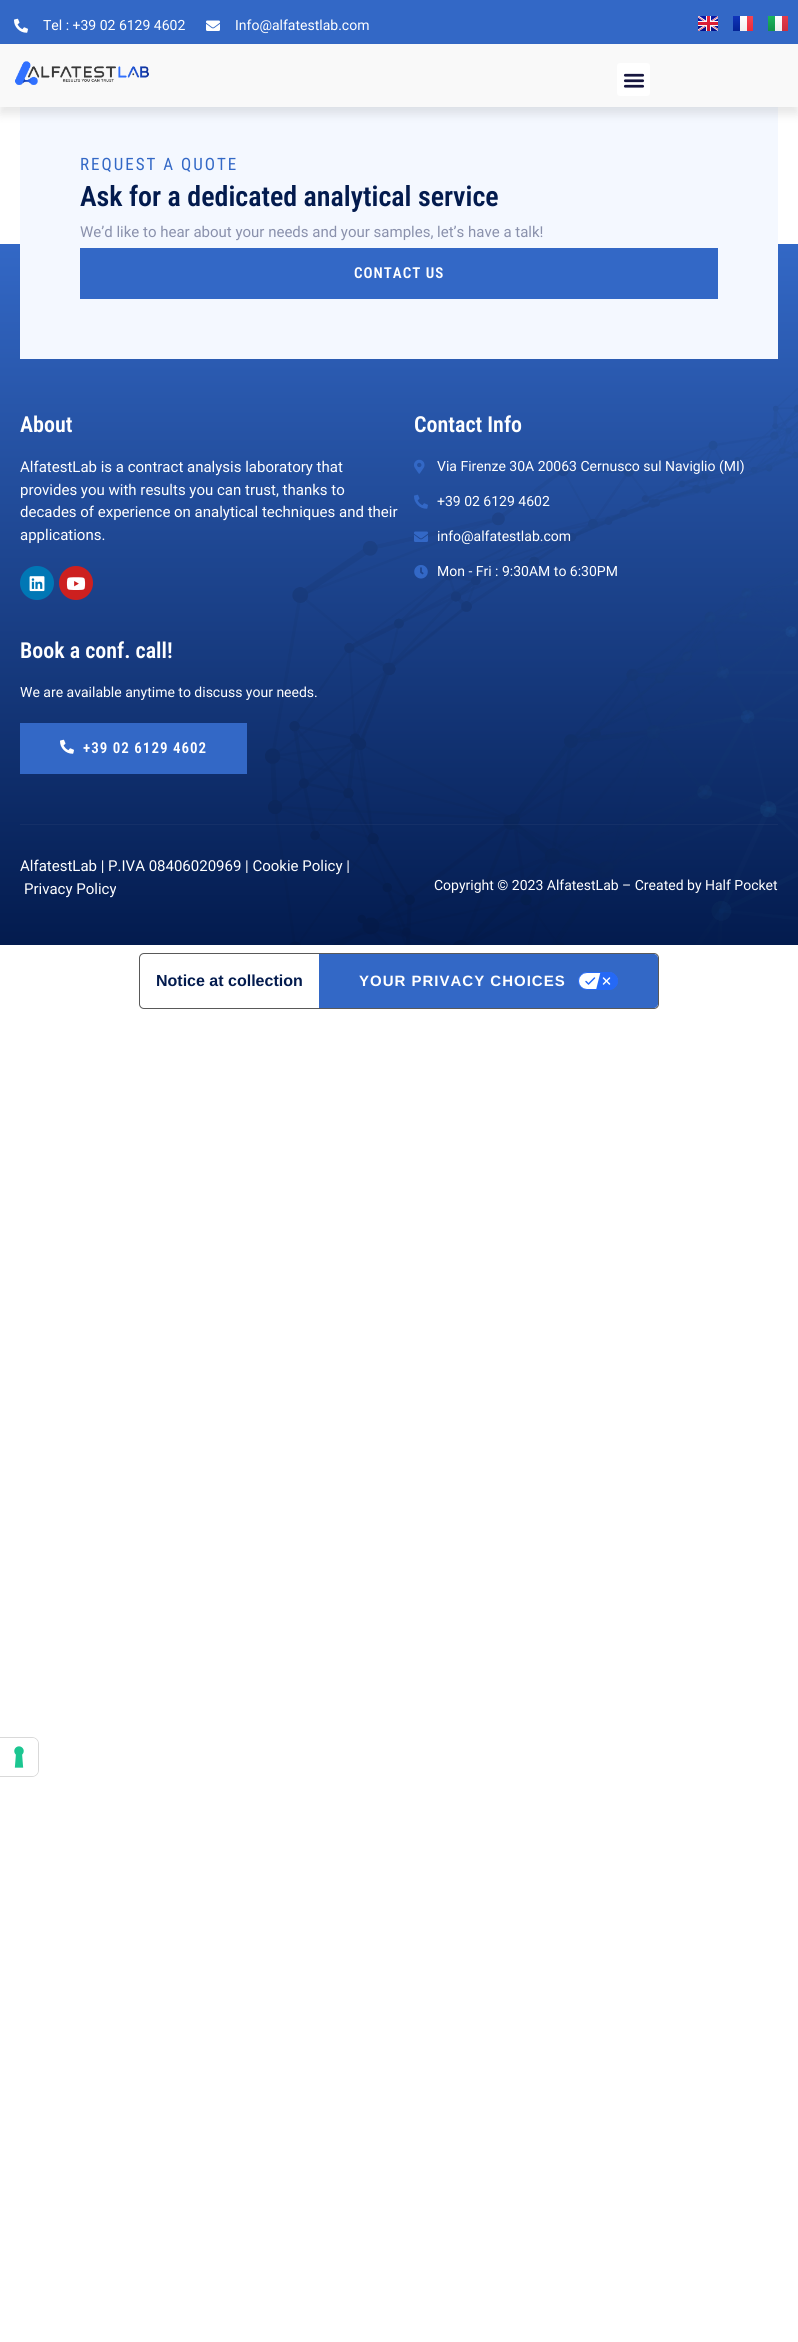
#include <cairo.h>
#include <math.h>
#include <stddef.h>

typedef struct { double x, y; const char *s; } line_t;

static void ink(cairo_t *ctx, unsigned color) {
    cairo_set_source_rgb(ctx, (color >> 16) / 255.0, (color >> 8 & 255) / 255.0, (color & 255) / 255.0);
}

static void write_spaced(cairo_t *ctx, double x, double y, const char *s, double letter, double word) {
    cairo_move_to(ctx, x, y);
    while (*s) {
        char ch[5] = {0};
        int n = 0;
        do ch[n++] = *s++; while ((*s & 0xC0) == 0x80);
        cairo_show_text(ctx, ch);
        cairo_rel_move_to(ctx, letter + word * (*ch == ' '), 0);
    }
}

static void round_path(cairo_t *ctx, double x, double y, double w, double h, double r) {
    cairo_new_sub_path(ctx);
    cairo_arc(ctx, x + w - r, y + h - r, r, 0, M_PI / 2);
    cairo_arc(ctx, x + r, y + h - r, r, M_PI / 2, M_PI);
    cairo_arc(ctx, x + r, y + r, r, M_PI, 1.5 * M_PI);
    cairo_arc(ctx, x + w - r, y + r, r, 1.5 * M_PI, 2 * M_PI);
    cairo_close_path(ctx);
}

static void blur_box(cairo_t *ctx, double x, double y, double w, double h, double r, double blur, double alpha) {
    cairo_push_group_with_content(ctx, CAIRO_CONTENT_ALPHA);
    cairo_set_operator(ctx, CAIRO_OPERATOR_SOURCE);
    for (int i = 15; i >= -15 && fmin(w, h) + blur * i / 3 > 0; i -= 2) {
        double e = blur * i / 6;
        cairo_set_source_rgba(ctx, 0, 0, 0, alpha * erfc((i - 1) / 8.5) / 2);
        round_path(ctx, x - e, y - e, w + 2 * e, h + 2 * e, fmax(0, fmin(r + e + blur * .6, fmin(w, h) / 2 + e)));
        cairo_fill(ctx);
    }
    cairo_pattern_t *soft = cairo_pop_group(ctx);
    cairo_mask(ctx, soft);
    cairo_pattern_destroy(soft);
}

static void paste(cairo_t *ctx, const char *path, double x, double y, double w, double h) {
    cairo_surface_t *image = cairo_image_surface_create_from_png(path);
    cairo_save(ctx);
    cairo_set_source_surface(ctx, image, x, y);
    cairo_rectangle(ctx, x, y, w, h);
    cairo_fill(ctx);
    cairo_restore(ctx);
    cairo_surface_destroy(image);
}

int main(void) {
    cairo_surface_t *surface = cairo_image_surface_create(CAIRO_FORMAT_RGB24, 798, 2342);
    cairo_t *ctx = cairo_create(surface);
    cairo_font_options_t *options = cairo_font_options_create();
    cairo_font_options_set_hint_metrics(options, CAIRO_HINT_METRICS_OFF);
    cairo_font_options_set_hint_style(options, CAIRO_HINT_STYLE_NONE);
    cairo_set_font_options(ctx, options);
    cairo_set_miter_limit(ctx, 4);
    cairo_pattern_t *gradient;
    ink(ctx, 0xFFFFFF);
    cairo_paint(ctx);
    ink(ctx, 0x3368C6);
    cairo_rectangle(ctx, 0, 0, 798, 44);
    cairo_fill(ctx);
    paste(ctx, "media/1.png", 14, 18, 14, 15);
    cairo_select_font_face(ctx, "Roboto", CAIRO_FONT_SLANT_NORMAL, CAIRO_FONT_WEIGHT_NORMAL);
    cairo_set_font_size(ctx, 14);
    ink(ctx, 0xFFFFFF);
    cairo_move_to(ctx, 43, 30);
    cairo_show_text(ctx, "Tel : +39 02 6129 4602");
    paste(ctx, "media/2.png", 206, 20, 14, 11);
    cairo_move_to(ctx, 235, 30);
    cairo_show_text(ctx, "Info@alfatestlab.com");
    paste(ctx, "media/3.png", 698, 16, 20, 15);
    gradient = cairo_pattern_create_linear(737, 16, 737, 31);
    cairo_pattern_add_color_stop_rgba(gradient, 0, 0.063, 0.208, 0.733, 1);
    cairo_pattern_add_color_stop_rgba(gradient, 1, 0.016, 0.137, 0.588, 1);
    cairo_set_source(ctx, gradient);
    cairo_pattern_destroy(gradient);
    cairo_rectangle(ctx, 733, 16, 7, 15);
    cairo_fill(ctx);
    gradient = cairo_pattern_create_linear(744, 16, 744, 31);
    cairo_pattern_add_color_stop_rgba(gradient, 0, 1, 1, 1, 1);
    cairo_pattern_add_color_stop_rgba(gradient, 1, 0.941, 0.941, 0.941, 1);
    cairo_set_source(ctx, gradient);
    cairo_pattern_destroy(gradient);
    cairo_rectangle(ctx, 740, 16, 7, 15);
    cairo_fill(ctx);
    gradient = cairo_pattern_create_linear(749, 16, 749, 31);
    cairo_pattern_add_color_stop_rgba(gradient, 0, 0.957, 0.275, 0.325, 1);
    cairo_pattern_add_color_stop_rgba(gradient, 1, 0.933, 0.165, 0.224, 1);
    cairo_set_source(ctx, gradient);
    cairo_pattern_destroy(gradient);
    cairo_rectangle(ctx, 747, 16, 6, 15);
    cairo_fill(ctx);
    gradient = cairo_pattern_create_linear(772, 16, 772, 31);
    cairo_pattern_add_color_stop_rgba(gradient, 0, 0.106, 0.714, 0.365, 1);
    cairo_pattern_add_color_stop_rgba(gradient, 1, 0.075, 0.569, 0.286, 1);
    cairo_set_source(ctx, gradient);
    cairo_pattern_destroy(gradient);
    cairo_rectangle(ctx, 768, 16, 7, 15);
    cairo_fill(ctx);
    gradient = cairo_pattern_create_linear(779, 16, 779, 31);
    cairo_pattern_add_color_stop_rgba(gradient, 0, 1, 1, 1, 1);
    cairo_pattern_add_color_stop_rgba(gradient, 1, 0.941, 0.941, 0.941, 1);
    cairo_set_source(ctx, gradient);
    cairo_pattern_destroy(gradient);
    cairo_rectangle(ctx, 775, 16, 7, 15);
    cairo_fill(ctx);
    gradient = cairo_pattern_create_linear(784, 16, 784, 31);
    cairo_pattern_add_color_stop_rgba(gradient, 0, 0.894, 0.239, 0.298, 1);
    cairo_pattern_add_color_stop_rgba(gradient, 1, 0.8, 0.18, 0.235, 1);
    cairo_set_source(ctx, gradient);
    cairo_pattern_destroy(gradient);
    cairo_rectangle(ctx, 782, 16, 6, 15);
    cairo_fill(ctx);
    gradient = cairo_pattern_create_linear(399, 244, 399, 945);
    cairo_pattern_add_color_stop_rgba(gradient, 0, 0.2, 0.408, 0.776, 1);
    cairo_pattern_add_color_stop_rgba(gradient, 1, 0.012, 0.106, 0.306, 1);
    cairo_set_source(ctx, gradient);
    cairo_pattern_destroy(gradient);
    cairo_rectangle(ctx, 0, 244, 798, 701);
    cairo_fill(ctx);
    ink(ctx, 0xF4F8FF);
    cairo_rectangle(ctx, 20, 107, 758, 252);
    cairo_fill(ctx);
    ink(ctx, 0x000000);
    blur_box(ctx, 0, 51, 798, 63, 0, 5, 0.1);
    ink(ctx, 0xF9F9F9);
    cairo_rectangle(ctx, 0, 44, 798, 63);
    cairo_fill(ctx);
    paste(ctx, "media/4.png", 15, 61, 134, 24);
    ink(ctx, 0xFFFFFF);
    round_path(ctx, 617, 63, 33, 33, 3);
    cairo_fill(ctx);
    paste(ctx, "media/5.png", 623, 73, 22, 15);
    cairo_select_font_face(ctx, "Roboto Condensed", CAIRO_FONT_SLANT_NORMAL, CAIRO_FONT_WEIGHT_NORMAL);
    cairo_set_font_size(ctx, 17);
    ink(ctx, 0x3368C6);
    write_spaced(ctx, 80, 170, "REQUEST A QUOTE", 2, 0);
    cairo_select_font_face(ctx, "Roboto Condensed SemiBold", CAIRO_FONT_SLANT_NORMAL, CAIRO_FONT_WEIGHT_NORMAL);
    cairo_set_font_size(ctx, 28);
    ink(ctx, 0x031B4E);
    cairo_move_to(ctx, 80, 206);
    cairo_show_text(ctx, "Ask for a dedicated analytical service");
    cairo_select_font_face(ctx, "Roboto", CAIRO_FONT_SLANT_NORMAL, CAIRO_FONT_WEIGHT_NORMAL);
    cairo_set_font_size(ctx, 15);
    ink(ctx, 0x8A91AC);
    cairo_move_to(ctx, 80, 237);
    cairo_show_text(ctx, "We’d like to hear about your needs and your samples, let’s have a talk!");
    ink(ctx, 0x3368C6);
    cairo_rectangle(ctx, 80, 248, 638, 51);
    cairo_fill(ctx);
    cairo_select_font_face(ctx, "Roboto Condensed SemiBold", CAIRO_FONT_SLANT_NORMAL, CAIRO_FONT_WEIGHT_NORMAL);
    ink(ctx, 0xFFFFFF);
    write_spaced(ctx, 354, 278, "CONTACT US", 1, 0);
    paste(ctx, "media/6.png", 265, 388, 533, 557);
    cairo_set_font_size(ctx, 22);
    cairo_move_to(ctx, 20, 432);
    cairo_show_text(ctx, "About");
    cairo_select_font_face(ctx, "Roboto", CAIRO_FONT_SLANT_NORMAL, CAIRO_FONT_WEIGHT_NORMAL);
    cairo_set_font_size(ctx, 15);
    {
        static const line_t items[] = {
            {20, 472, "AlfatestLab is a contract analysis laboratory that"},
            {20, 495, "provides you with results you can trust, thanks to"},
            {20, 517, "decades of experience on analytical techniques and their"},
            {20, 540, "applications."},
        };
        for (size_t i = 0; i < sizeof items / sizeof *items; i++) {
            cairo_move_to(ctx, items[i].x, items[i].y);
            cairo_show_text(ctx, items[i].s);
        }
    }
    ink(ctx, 0x0077B5);
    cairo_new_path(ctx);
    cairo_arc(ctx, 37, 583, 17, 0, 2 * M_PI);
    cairo_fill(ctx);
    paste(ctx, "media/7.png", 29, 576, 16, 16);
    ink(ctx, 0xCD201F);
    cairo_arc(ctx, 76, 583, 17, 0, 2 * M_PI);
    cairo_fill(ctx);
    paste(ctx, "media/8.png", 66, 577, 20, 13);
    cairo_select_font_face(ctx, "Roboto Condensed SemiBold", CAIRO_FONT_SLANT_NORMAL, CAIRO_FONT_WEIGHT_NORMAL);
    cairo_set_font_size(ctx, 22);
    ink(ctx, 0xFFFFFF);
    cairo_move_to(ctx, 414, 432);
    cairo_show_text(ctx, "Contact Info");
    paste(ctx, "media/9.png", 414, 459, 11, 15);
    cairo_select_font_face(ctx, "Roboto", CAIRO_FONT_SLANT_NORMAL, CAIRO_FONT_WEIGHT_NORMAL);
    cairo_set_font_size(ctx, 14);
    cairo_move_to(ctx, 437, 471);
    cairo_show_text(ctx, "Via Firenze 30A 20063 Cernusco sul Naviglio (MI)");
    paste(ctx, "media/10.png", 414, 494, 14, 15);
    cairo_move_to(ctx, 437, 506);
    cairo_show_text(ctx, "+39 02 6129 4602");
    paste(ctx, "media/11.png", 414, 531, 14, 11);
    cairo_move_to(ctx, 437, 541);
    cairo_show_text(ctx, "info@alfatestlab.com");
    paste(ctx, "media/12.png", 414, 565, 14, 14);
    cairo_move_to(ctx, 437, 576);
    cairo_show_text(ctx, "Mon - Fri : 9:30AM to 6:30PM");
    cairo_select_font_face(ctx, "Roboto Condensed SemiBold", CAIRO_FONT_SLANT_NORMAL, CAIRO_FONT_WEIGHT_NORMAL);
    cairo_set_font_size(ctx, 22);
    cairo_move_to(ctx, 20, 658);
    cairo_show_text(ctx, "Book a conf. call!");
    cairo_select_font_face(ctx, "Roboto", CAIRO_FONT_SLANT_NORMAL, CAIRO_FONT_WEIGHT_NORMAL);
    cairo_set_font_size(ctx, 14);
    cairo_move_to(ctx, 20, 697);
    cairo_show_text(ctx, "We are available anytime to discuss your needs.");
    ink(ctx, 0x3368C6);
    cairo_rectangle(ctx, 20, 723, 227, 51);
    cairo_fill(ctx);
    paste(ctx, "media/1.png", 60, 739, 14, 15);
    cairo_select_font_face(ctx, "Roboto Condensed SemiBold", CAIRO_FONT_SLANT_NORMAL, CAIRO_FONT_WEIGHT_NORMAL);
    cairo_set_font_size(ctx, 15);
    ink(ctx, 0xFFFFFF);
    write_spaced(ctx, 83, 753, "+39 02 6129 4602", 1, 0);
    cairo_set_source_rgba(ctx, 0.541, 0.569, 0.675, 0.08);
    cairo_rectangle(ctx, 20, 824, 758, 1);
    cairo_fill(ctx);
    cairo_select_font_face(ctx, "Roboto", CAIRO_FONT_SLANT_NORMAL, CAIRO_FONT_WEIGHT_NORMAL);
    ink(ctx, 0xFFFFFF);
    cairo_move_to(ctx, 20, 871);
    cairo_show_text(ctx, "AlfatestLab | P.IVA 08406020969 | Cookie Policy |");
    cairo_move_to(ctx, 24, 894);
    cairo_show_text(ctx, "Privacy Policy");
    cairo_set_font_size(ctx, 14);
    cairo_move_to(ctx, 434, 890);
    cairo_show_text(ctx, "Copyright © 2023 AlfatestLab – Created by Half Pocket");
    round_path(ctx, 139.5, 953.5, 519, 55, 4.5);
    ink(ctx, 0x595959);
    cairo_set_line_width(ctx, 1);
    cairo_stroke(ctx);
    cairo_select_font_face(ctx, "Liberation Sans", CAIRO_FONT_SLANT_NORMAL, CAIRO_FONT_WEIGHT_BOLD);
    cairo_set_font_size(ctx, 16);
    ink(ctx, 0x031B4E);
    cairo_move_to(ctx, 156, 986);
    cairo_show_text(ctx, "Notice at collection");
    ink(ctx, 0x3368C6);
    cairo_new_path(ctx);
    cairo_move_to(ctx, 319, 954);
    cairo_line_to(ctx, 654, 954);
    cairo_curve_to(ctx, 656, 954, 658, 956, 658, 958);
    cairo_line_to(ctx, 658, 1004);
    cairo_curve_to(ctx, 658, 1006, 656, 1008, 654, 1008);
    cairo_line_to(ctx, 319, 1008);
    cairo_close_path(ctx);
    cairo_fill(ctx);
    cairo_set_font_size(ctx, 15);
    ink(ctx, 0xFFFFFF);
    write_spaced(ctx, 359, 986, "YOUR PRIVACY CHOICES", 1, 0);
    paste(ctx, "media/13.png", 578, 972, 40, 18);
    cairo_new_path(ctx);
    cairo_move_to(ctx, -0.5, 1737.5);
    cairo_line_to(ctx, 32, 1737.5);
    cairo_curve_to(ctx, 35.5, 1737.5, 38.5, 1740.5, 38.5, 1744);
    cairo_line_to(ctx, 38.5, 1770);
    cairo_curve_to(ctx, 38.5, 1773.5, 35.5, 1776.5, 32, 1776.5);
    cairo_line_to(ctx, -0.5, 1776.5);
    cairo_close_path(ctx);
    ink(ctx, 0xD9D9D9);
    cairo_stroke(ctx);
    ink(ctx, 0xFFFFFF);
    cairo_new_path(ctx);
    cairo_move_to(ctx, 0, 1738);
    cairo_line_to(ctx, 32, 1738);
    cairo_curve_to(ctx, 35.5, 1738, 38, 1740.5, 38, 1744);
    cairo_line_to(ctx, 38, 1770);
    cairo_curve_to(ctx, 38, 1773.5, 35.5, 1776, 32, 1776);
    cairo_line_to(ctx, 0, 1776);
    cairo_close_path(ctx);
    cairo_fill(ctx);
    paste(ctx, "media/14.png", 14, 1746, 10, 22);
    cairo_surface_write_to_png(surface, "image.png");
    cairo_font_options_destroy(options);
    cairo_destroy(ctx);
    cairo_surface_destroy(surface);
    return 0;
}
